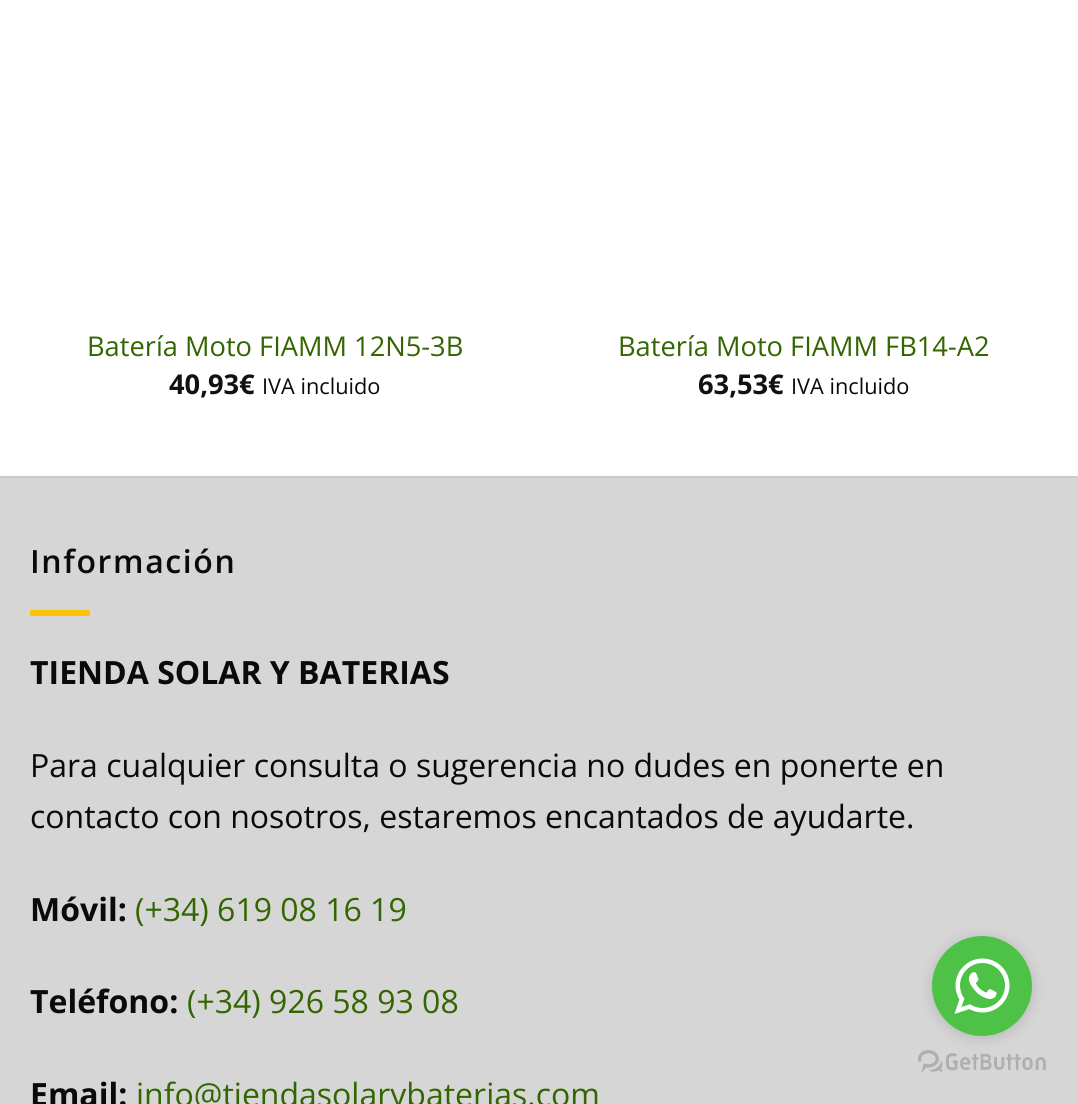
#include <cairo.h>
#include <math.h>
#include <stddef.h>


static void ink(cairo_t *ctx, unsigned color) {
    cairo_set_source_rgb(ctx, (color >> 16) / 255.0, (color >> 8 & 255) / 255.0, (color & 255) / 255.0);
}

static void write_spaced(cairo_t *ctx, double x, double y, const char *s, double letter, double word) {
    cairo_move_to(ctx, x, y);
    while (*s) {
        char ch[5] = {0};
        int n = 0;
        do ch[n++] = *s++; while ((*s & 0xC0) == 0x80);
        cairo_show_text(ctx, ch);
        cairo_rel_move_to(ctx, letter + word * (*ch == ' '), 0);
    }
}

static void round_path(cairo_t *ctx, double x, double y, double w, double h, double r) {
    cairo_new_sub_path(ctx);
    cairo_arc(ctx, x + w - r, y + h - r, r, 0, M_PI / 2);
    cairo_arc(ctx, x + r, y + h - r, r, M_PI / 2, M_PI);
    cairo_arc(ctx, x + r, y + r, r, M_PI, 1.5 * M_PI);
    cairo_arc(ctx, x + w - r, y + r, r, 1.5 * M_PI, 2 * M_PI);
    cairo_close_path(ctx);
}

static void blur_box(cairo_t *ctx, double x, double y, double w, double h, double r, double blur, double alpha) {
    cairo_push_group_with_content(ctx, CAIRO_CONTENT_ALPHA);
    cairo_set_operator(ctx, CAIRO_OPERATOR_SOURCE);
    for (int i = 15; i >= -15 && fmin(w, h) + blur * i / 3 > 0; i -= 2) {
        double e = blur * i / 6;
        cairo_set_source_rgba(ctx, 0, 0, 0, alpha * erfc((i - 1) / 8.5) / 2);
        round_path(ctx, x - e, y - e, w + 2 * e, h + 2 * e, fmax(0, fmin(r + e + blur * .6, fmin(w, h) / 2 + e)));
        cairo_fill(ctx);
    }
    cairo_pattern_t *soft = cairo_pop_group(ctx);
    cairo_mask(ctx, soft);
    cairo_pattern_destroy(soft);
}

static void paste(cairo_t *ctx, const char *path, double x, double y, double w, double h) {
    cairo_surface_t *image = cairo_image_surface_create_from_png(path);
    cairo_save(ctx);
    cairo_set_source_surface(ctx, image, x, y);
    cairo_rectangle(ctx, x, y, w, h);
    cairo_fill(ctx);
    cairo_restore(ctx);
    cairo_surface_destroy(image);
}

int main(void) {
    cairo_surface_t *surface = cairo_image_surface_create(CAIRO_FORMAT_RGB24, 1078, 1104);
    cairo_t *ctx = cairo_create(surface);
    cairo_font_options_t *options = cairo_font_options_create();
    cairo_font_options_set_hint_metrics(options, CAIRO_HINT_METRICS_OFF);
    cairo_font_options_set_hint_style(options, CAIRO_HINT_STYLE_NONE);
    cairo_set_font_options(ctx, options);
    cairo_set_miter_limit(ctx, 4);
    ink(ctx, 0xFFFFFF);
    cairo_paint(ctx);
    cairo_select_font_face(ctx, "Open Sans", CAIRO_FONT_SLANT_NORMAL, CAIRO_FONT_WEIGHT_NORMAL);
    cairo_set_font_size(ctx, 27.25);
    ink(ctx, 0x336600);
    cairo_move_to(ctx, 87, 356);
    cairo_show_text(ctx, "Batería Moto FIAMM 12N5-3B");
    cairo_select_font_face(ctx, "Open Sans", CAIRO_FONT_SLANT_NORMAL, CAIRO_FONT_WEIGHT_BOLD);
    ink(ctx, 0x111111);
    cairo_move_to(ctx, 169, 394);
    cairo_show_text(ctx, "40,93€");
    cairo_select_font_face(ctx, "Open Sans", CAIRO_FONT_SLANT_NORMAL, CAIRO_FONT_WEIGHT_NORMAL);
    cairo_set_font_size(ctx, 21.75);
    ink(ctx, 0x0A0A0A);
    cairo_move_to(ctx, 262, 394);
    cairo_show_text(ctx, "IVA incluido");
    cairo_set_font_size(ctx, 27.25);
    ink(ctx, 0x336600);
    cairo_move_to(ctx, 618, 356);
    cairo_show_text(ctx, "Batería Moto FIAMM FB14-A2");
    cairo_select_font_face(ctx, "Open Sans", CAIRO_FONT_SLANT_NORMAL, CAIRO_FONT_WEIGHT_BOLD);
    ink(ctx, 0x111111);
    cairo_move_to(ctx, 698, 394);
    cairo_show_text(ctx, "63,53€");
    cairo_select_font_face(ctx, "Open Sans", CAIRO_FONT_SLANT_NORMAL, CAIRO_FONT_WEIGHT_NORMAL);
    cairo_set_font_size(ctx, 21.75);
    ink(ctx, 0x0A0A0A);
    cairo_move_to(ctx, 791, 394);
    cairo_show_text(ctx, "IVA incluido");
    ink(ctx, 0xD6D6D6);
    cairo_rectangle(ctx, 0, 478, 1078, 626);
    cairo_fill(ctx);
    ink(ctx, 0xCBCBCB);
    cairo_rectangle(ctx, 0, 476, 1078, 2);
    cairo_fill(ctx);
    cairo_select_font_face(ctx, "Open Sans SemiBold", CAIRO_FONT_SLANT_NORMAL, CAIRO_FONT_WEIGHT_NORMAL);
    cairo_set_font_size(ctx, 32);
    ink(ctx, 0x0A0A0A);
    write_spaced(ctx, 30, 573, "Información", 1.6, 0);
    ink(ctx, 0xFDC401);
    cairo_rectangle(ctx, 30, 610, 60, 6);
    cairo_fill(ctx);
    cairo_select_font_face(ctx, "Open Sans", CAIRO_FONT_SLANT_NORMAL, CAIRO_FONT_WEIGHT_BOLD);
    ink(ctx, 0x0A0A0A);
    cairo_move_to(ctx, 30, 684);
    cairo_show_text(ctx, "TIENDA SOLAR Y BATERIAS");
    cairo_select_font_face(ctx, "Open Sans", CAIRO_FONT_SLANT_NORMAL, CAIRO_FONT_WEIGHT_NORMAL);
    cairo_move_to(ctx, 30, 777);
    cairo_show_text(ctx, "Para cualquier consulta o sugerencia no dudes en ponerte en");
    cairo_move_to(ctx, 30, 828);
    cairo_show_text(ctx, "contacto con nosotros, estaremos encantados de ayudarte.");
    cairo_select_font_face(ctx, "Open Sans", CAIRO_FONT_SLANT_NORMAL, CAIRO_FONT_WEIGHT_BOLD);
    cairo_move_to(ctx, 30, 921);
    cairo_show_text(ctx, "Móvil:");
    cairo_select_font_face(ctx, "Open Sans", CAIRO_FONT_SLANT_NORMAL, CAIRO_FONT_WEIGHT_NORMAL);
    ink(ctx, 0x336600);
    cairo_move_to(ctx, 135, 921);
    cairo_show_text(ctx, "(+34) 619 08 16 19");
    cairo_select_font_face(ctx, "Open Sans", CAIRO_FONT_SLANT_NORMAL, CAIRO_FONT_WEIGHT_BOLD);
    ink(ctx, 0x0A0A0A);
    cairo_move_to(ctx, 30, 1013);
    cairo_show_text(ctx, "Teléfono:");
    cairo_select_font_face(ctx, "Open Sans", CAIRO_FONT_SLANT_NORMAL, CAIRO_FONT_WEIGHT_NORMAL);
    ink(ctx, 0x336600);
    cairo_move_to(ctx, 187, 1013);
    cairo_show_text(ctx, "(+34) 926 58 93 08");
    cairo_select_font_face(ctx, "Open Sans", CAIRO_FONT_SLANT_NORMAL, CAIRO_FONT_WEIGHT_BOLD);
    ink(ctx, 0x0A0A0A);
    cairo_move_to(ctx, 30, 1106);
    cairo_show_text(ctx, "Email:");
    cairo_select_font_face(ctx, "Open Sans", CAIRO_FONT_SLANT_NORMAL, CAIRO_FONT_WEIGHT_NORMAL);
    ink(ctx, 0x336600);
    cairo_move_to(ctx, 136, 1106);
    cairo_show_text(ctx, "info@tiendasolarybaterias.com");
    paste(ctx, "media/2.png", 918, 1050, 128, 22);
    ink(ctx, 0x888888);
    blur_box(ctx, 932, 938, 100, 100, 50, 7, 0.4);
    ink(ctx, 0x4DC247);
    cairo_arc(ctx, 982, 986, 50, 0, 2 * M_PI);
    cairo_fill(ctx);
    paste(ctx, "media/1.png", 954, 958, 56, 56);
    cairo_surface_write_to_png(surface, "image.png");
    cairo_font_options_destroy(options);
    cairo_destroy(ctx);
    cairo_surface_destroy(surface);
    return 0;
}
